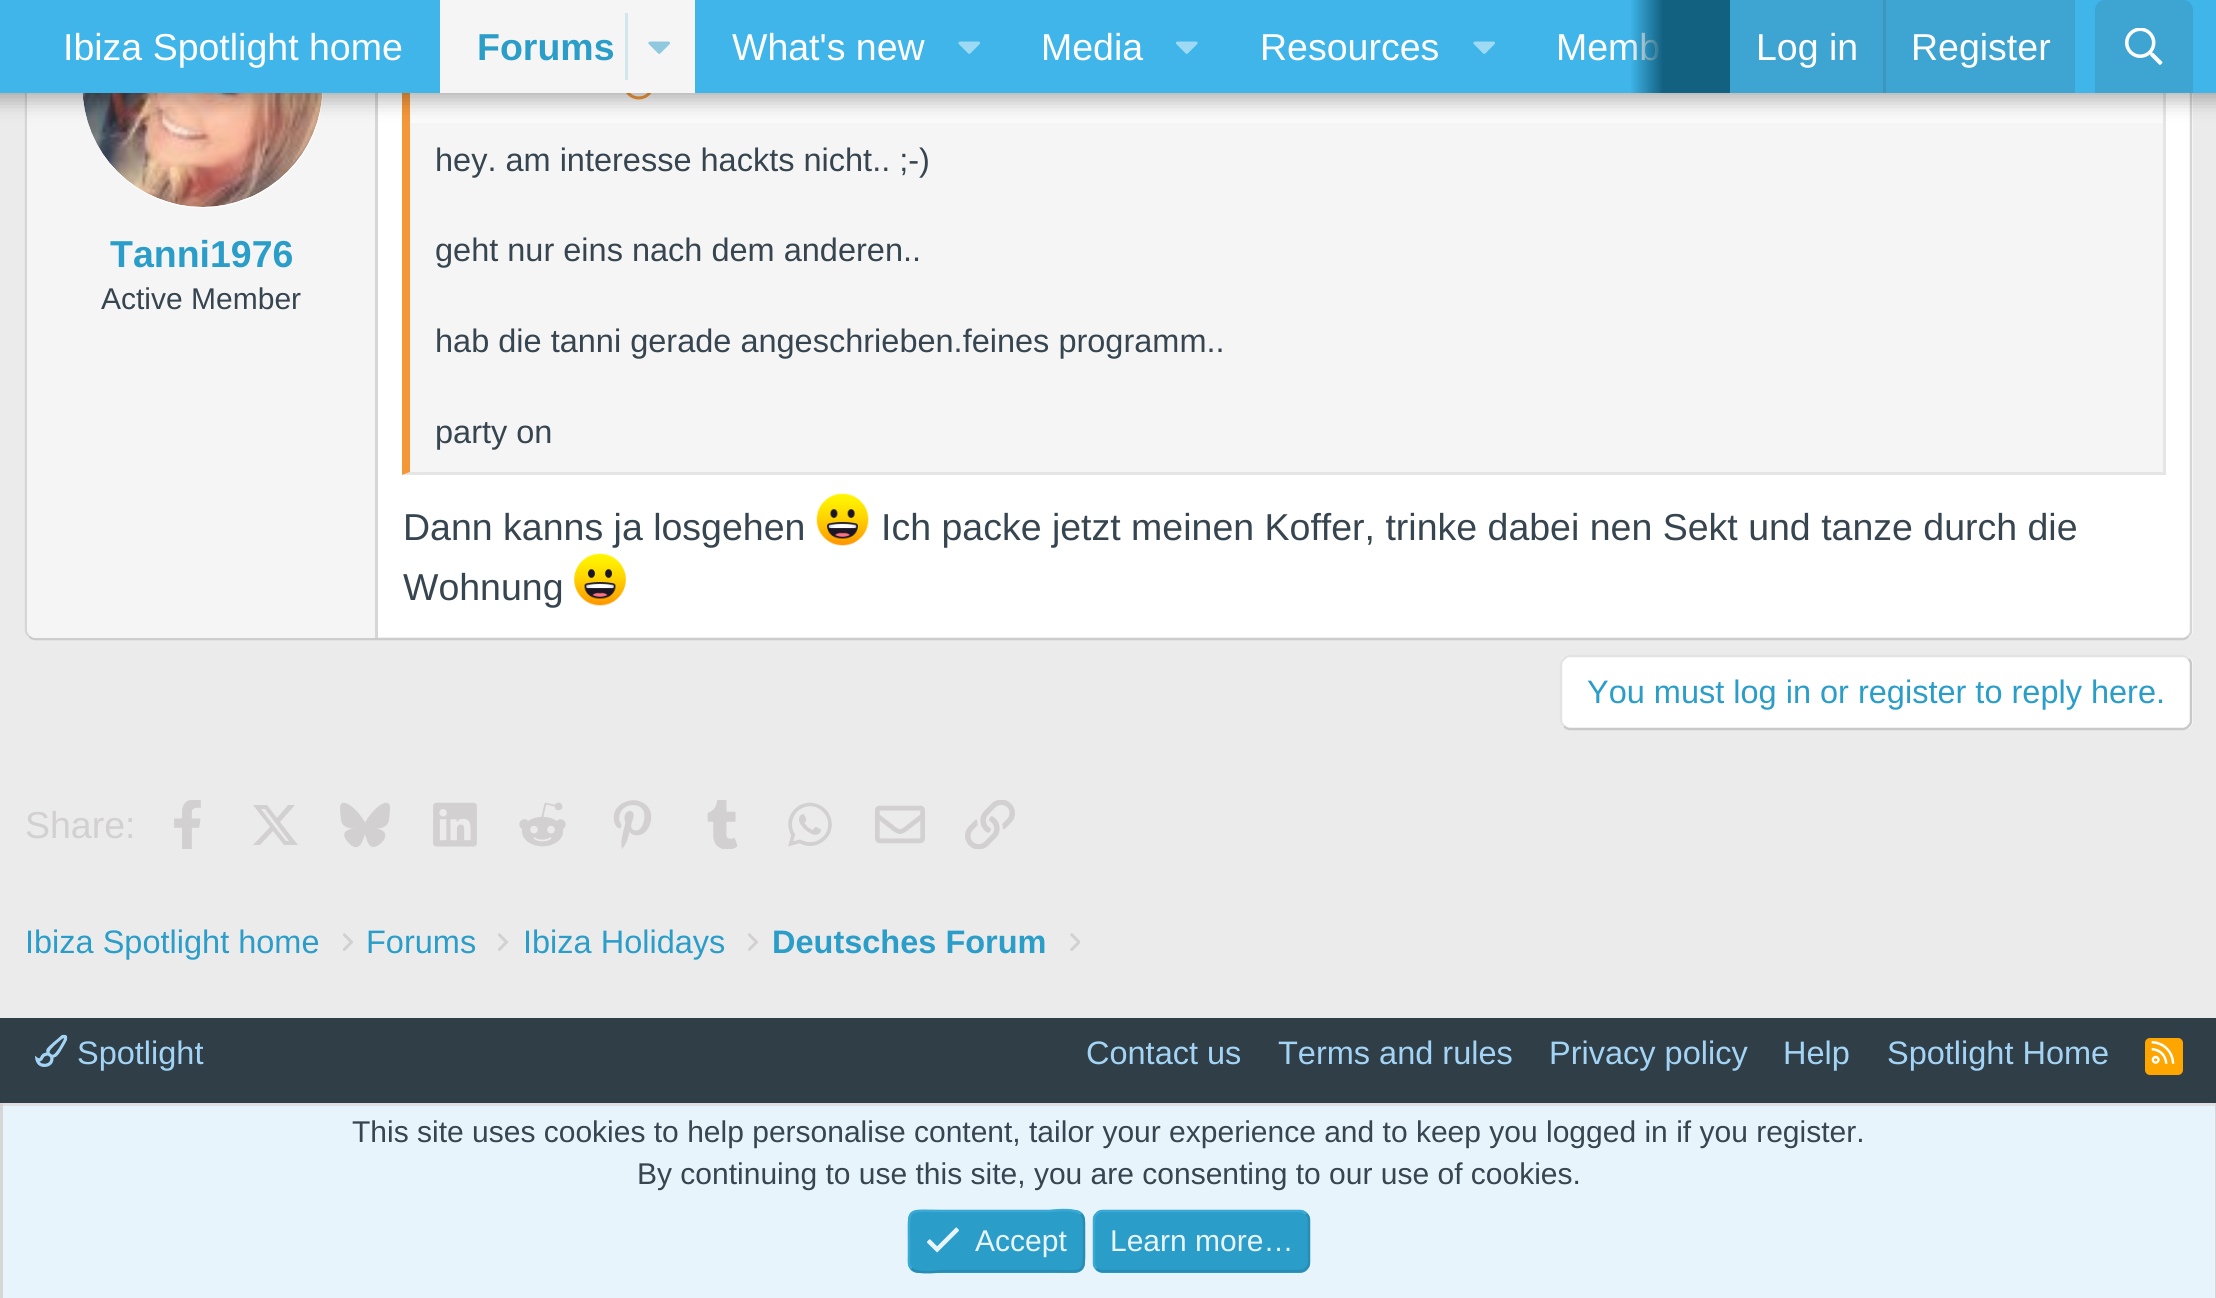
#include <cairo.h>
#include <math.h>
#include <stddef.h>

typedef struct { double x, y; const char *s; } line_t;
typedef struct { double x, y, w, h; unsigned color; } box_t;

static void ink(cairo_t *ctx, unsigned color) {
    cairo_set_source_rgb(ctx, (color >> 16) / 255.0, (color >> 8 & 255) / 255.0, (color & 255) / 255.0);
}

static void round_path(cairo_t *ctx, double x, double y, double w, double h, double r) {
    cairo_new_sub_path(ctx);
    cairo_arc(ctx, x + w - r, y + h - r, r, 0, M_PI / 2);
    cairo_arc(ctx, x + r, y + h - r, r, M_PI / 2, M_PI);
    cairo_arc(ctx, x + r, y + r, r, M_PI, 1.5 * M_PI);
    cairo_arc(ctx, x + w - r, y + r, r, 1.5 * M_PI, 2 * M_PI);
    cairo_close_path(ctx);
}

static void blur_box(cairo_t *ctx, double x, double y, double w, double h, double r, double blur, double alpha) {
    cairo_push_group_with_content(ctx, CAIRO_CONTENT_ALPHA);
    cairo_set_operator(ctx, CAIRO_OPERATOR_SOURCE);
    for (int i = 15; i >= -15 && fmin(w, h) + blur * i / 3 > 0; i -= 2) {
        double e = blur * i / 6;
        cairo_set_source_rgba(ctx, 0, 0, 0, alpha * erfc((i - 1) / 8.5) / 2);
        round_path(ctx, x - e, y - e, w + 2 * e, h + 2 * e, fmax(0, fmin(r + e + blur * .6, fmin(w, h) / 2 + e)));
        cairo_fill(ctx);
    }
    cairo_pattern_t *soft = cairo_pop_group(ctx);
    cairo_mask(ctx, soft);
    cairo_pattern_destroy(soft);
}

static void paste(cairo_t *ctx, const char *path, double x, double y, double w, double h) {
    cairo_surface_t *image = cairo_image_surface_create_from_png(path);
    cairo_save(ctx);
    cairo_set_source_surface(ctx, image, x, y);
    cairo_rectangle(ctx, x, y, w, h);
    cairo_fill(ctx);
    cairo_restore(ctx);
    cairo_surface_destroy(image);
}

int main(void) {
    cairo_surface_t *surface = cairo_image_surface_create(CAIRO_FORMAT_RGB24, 2216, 1298);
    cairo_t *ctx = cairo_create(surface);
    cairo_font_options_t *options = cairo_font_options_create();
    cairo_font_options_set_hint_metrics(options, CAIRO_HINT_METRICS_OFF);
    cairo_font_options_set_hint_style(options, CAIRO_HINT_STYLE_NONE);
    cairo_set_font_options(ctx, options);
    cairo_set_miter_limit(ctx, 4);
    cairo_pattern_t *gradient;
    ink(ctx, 0xEBEBEB);
    cairo_paint(ctx);
    ink(ctx, 0xFFFFFF);
    round_path(ctx, 25, -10, 2168, 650, 10);
    cairo_fill(ctx);
    cairo_new_path(ctx);
    cairo_move_to(ctx, 2188.5, -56);
    cairo_curve_to(ctx, 2190.5, -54.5, 2191, -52.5, 2191, -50);
    cairo_line_to(ctx, 2191, 630);
    cairo_curve_to(ctx, 2191, 632.5, 2190.5, 634.5, 2188.5, 636);
    ink(ctx, 0xD6D6D6);
    cairo_set_line_width(ctx, 2.5);
    cairo_stroke(ctx);
    cairo_new_path(ctx);
    cairo_move_to(ctx, 2188.5, 636);
    cairo_curve_to(ctx, 2187, 638, 2185, 639, 2182.5, 639);
    cairo_line_to(ctx, 35, 639);
    cairo_curve_to(ctx, 32.5, 639, 30.5, 638, 29, 636);
    ink(ctx, 0xCCCCCC);
    cairo_stroke(ctx);
    cairo_new_path(ctx);
    cairo_move_to(ctx, 29, 636);
    cairo_curve_to(ctx, 27, 634.5, 26, 632.5, 26, 630);
    cairo_line_to(ctx, 26, -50);
    cairo_curve_to(ctx, 26, -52.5, 27, -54.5, 29, -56);
    ink(ctx, 0xD6D6D6);
    cairo_stroke(ctx);
    ink(ctx, 0xF5F5F5);
    cairo_new_path(ctx);
    cairo_move_to(ctx, 36, -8);
    cairo_line_to(ctx, 378, -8);
    cairo_line_to(ctx, 378, 638);
    cairo_line_to(ctx, 36, 638);
    cairo_curve_to(ctx, 31.5, 638, 28, 634.5, 28, 630);
    cairo_line_to(ctx, 28, 0);
    cairo_curve_to(ctx, 28, -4.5, 31.5, -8, 36, -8);
    cairo_close_path(ctx);
    cairo_fill(ctx);
    ink(ctx, 0xD6D6D6);
    cairo_rectangle(ctx, 375, 93, 3, 545);
    cairo_fill(ctx);
    ink(ctx, 0xFFFFFF);
    cairo_arc(ctx, 203, 88, 120, 0, 2 * M_PI);
    cairo_fill(ctx);
    paste(ctx, "media/5.png", 83, 93, 239, 114);
    ink(ctx, 0xF5F5F5);
    cairo_rectangle(ctx, 410, 123, 1753, 350);
    cairo_fill(ctx);
    ink(ctx, 0xE5E5E5);
    cairo_rectangle(ctx, 2163, 93, 3, 382);
    cairo_fill(ctx);
    cairo_new_path(ctx);
    cairo_move_to(ctx, 2165, 475);
    cairo_line_to(ctx, 402, 475);
    cairo_line_to(ctx, 410, 472);
    cairo_line_to(ctx, 2162, 472);
    cairo_close_path(ctx);
    cairo_fill(ctx);
    ink(ctx, 0xF49739);
    cairo_new_path(ctx);
    cairo_move_to(ctx, 402, 475);
    cairo_line_to(ctx, 402, 45);
    cairo_line_to(ctx, 410, 48);
    cairo_line_to(ctx, 410, 472);
    cairo_close_path(ctx);
    cairo_fill(ctx);
    ink(ctx, 0xFAFAFA);
    cairo_rectangle(ctx, 410, 93, 1753, 30);
    cairo_fill(ctx);
    paste(ctx, "media/6.png", 626, 93, 26, 7);
    ink(ctx, 0x000000);
    blur_box(ctx, -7, -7, 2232, 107, 0, 10, 0.3);
    ink(ctx, 0x3FB5E9);
    cairo_rectangle(ctx, 0, 0, 2216, 93);
    cairo_fill(ctx);
    cairo_select_font_face(ctx, "Liberation Sans", CAIRO_FONT_SLANT_NORMAL, CAIRO_FONT_WEIGHT_NORMAL);
    cairo_set_font_size(ctx, 37.5);
    ink(ctx, 0xFFFFFF);
    cairo_move_to(ctx, 63, 60);
    cairo_show_text(ctx, "Ibiza Spotlight home");
    ink(ctx, 0xF5F5F5);
    cairo_rectangle(ctx, 440, 0, 255, 93);
    cairo_fill(ctx);
    cairo_select_font_face(ctx, "Liberation Sans", CAIRO_FONT_SLANT_NORMAL, CAIRO_FONT_WEIGHT_BOLD);
    ink(ctx, 0x2B9DC9);
    cairo_move_to(ctx, 477, 60);
    cairo_show_text(ctx, "Forums");
    ink(ctx, 0xD2E6ED);
    cairo_rectangle(ctx, 625, 13, 3, 67);
    cairo_fill(ctx);
    paste(ctx, "media/1.png", 648, 41, 22, 13);
    cairo_select_font_face(ctx, "Liberation Sans", CAIRO_FONT_SLANT_NORMAL, CAIRO_FONT_WEIGHT_NORMAL);
    ink(ctx, 0xFFFFFF);
    cairo_move_to(ctx, 732, 60);
    cairo_show_text(ctx, "What's new");
    paste(ctx, "media/2.png", 958, 41, 22, 13);
    cairo_move_to(ctx, 1041, 60);
    cairo_show_text(ctx, "Media");
    paste(ctx, "media/3.png", 1175, 41, 23, 13);
    cairo_move_to(ctx, 1260, 60);
    cairo_show_text(ctx, "Resources");
    paste(ctx, "media/2.png", 1473, 41, 22, 13);
    cairo_move_to(ctx, 1556, 60);
    cairo_show_text(ctx, "Memb");
    gradient = cairo_pattern_create_linear(1630, 46, 1730, 46);
    cairo_pattern_add_color_stop_rgba(gradient, 0, 0.071, 0.38, 0.506, 0);
    cairo_pattern_add_color_stop_rgba(gradient, 0.33, 0.071, 0.38, 0.506, 1);
    cairo_set_source(ctx, gradient);
    cairo_pattern_destroy(gradient);
    cairo_rectangle(ctx, 1631, 0, 99, 93);
    cairo_fill(ctx);
    ink(ctx, 0x3EA4D2);
    cairo_rectangle(ctx, 1730, 0, 345, 93);
    cairo_fill(ctx);
    ink(ctx, 0xFFFFFF);
    cairo_move_to(ctx, 1756, 60);
    cairo_show_text(ctx, "Log in");
    ink(ctx, 0x3D96BE);
    cairo_rectangle(ctx, 1883, 0, 3, 93);
    cairo_fill(ctx);
    ink(ctx, 0xFFFFFF);
    cairo_move_to(ctx, 1911, 60);
    cairo_show_text(ctx, "Register");
    ink(ctx, 0x3EA4D2);
    cairo_new_path(ctx);
    cairo_move_to(ctx, 2105, 0);
    cairo_line_to(ctx, 2183, 0);
    cairo_curve_to(ctx, 2188.5, 0, 2193, 4.5, 2193, 10);
    cairo_line_to(ctx, 2193, 93);
    cairo_line_to(ctx, 2095, 93);
    cairo_line_to(ctx, 2095, 10);
    cairo_curve_to(ctx, 2095, 4.5, 2099.5, 0, 2105, 0);
    cairo_close_path(ctx);
    cairo_fill(ctx);
    paste(ctx, "media/4.png", 2125, 28, 38, 37);
    cairo_select_font_face(ctx, "Liberation Sans", CAIRO_FONT_SLANT_NORMAL, CAIRO_FONT_WEIGHT_BOLD);
    ink(ctx, 0x2B9DC9);
    cairo_move_to(ctx, 110, 267);
    cairo_show_text(ctx, "Tanni1976");
    cairo_select_font_face(ctx, "Liberation Sans", CAIRO_FONT_SLANT_NORMAL, CAIRO_FONT_WEIGHT_NORMAL);
    cairo_set_font_size(ctx, 30);
    ink(ctx, 0x36454F);
    cairo_move_to(ctx, 101, 309);
    cairo_show_text(ctx, "Active Member");
    cairo_set_font_size(ctx, 32.5);
    {
        static const line_t items[] = {
            {435, 171, "hey. am interesse hackts nicht.. ;-)"},
            {435, 261, "geht nur eins nach dem anderen.."},
            {435, 352, "hab die tanni gerade angeschrieben.feines programm.."},
            {435, 443, "party on"},
        };
        for (size_t i = 0; i < sizeof items / sizeof *items; i++) {
            cairo_move_to(ctx, items[i].x, items[i].y);
            cairo_show_text(ctx, items[i].s);
        }
    }
    cairo_set_font_size(ctx, 37.5);
    cairo_move_to(ctx, 403, 540);
    cairo_show_text(ctx, "Dann kanns ja losgehen");
    paste(ctx, "media/7.png", 816, 493, 53, 53);
    cairo_move_to(ctx, 881, 540);
    cairo_show_text(ctx, "Ich packe jetzt meinen Koffer, trinke dabei nen Sekt und tanze durch die");
    cairo_move_to(ctx, 403, 600);
    cairo_show_text(ctx, "Wohnung");
    paste(ctx, "media/8.png", 574, 553, 52, 53);
    ink(ctx, 0xFFFFFF);
    round_path(ctx, 1560, 655, 633, 75, 10);
    cairo_fill(ctx);
    cairo_new_path(ctx);
    cairo_move_to(ctx, 2188.5, 659);
    cairo_curve_to(ctx, 2190.5, 660.5, 2191, 662.5, 2191, 665);
    cairo_line_to(ctx, 2191, 720);
    cairo_curve_to(ctx, 2191, 722.5, 2190.5, 724.5, 2188.5, 726);
    cairo_curve_to(ctx, 2187, 728, 2185, 729, 2182.5, 729);
    cairo_line_to(ctx, 1570, 729);
    cairo_curve_to(ctx, 1567.5, 729, 1565.5, 728, 1564, 726);
    ink(ctx, 0xC9C9C9);
    cairo_stroke(ctx);
    cairo_new_path(ctx);
    cairo_move_to(ctx, 1564, 726);
    cairo_curve_to(ctx, 1562, 724.5, 1561, 722.5, 1561, 720);
    cairo_line_to(ctx, 1561, 665);
    cairo_curve_to(ctx, 1561, 662.5, 1562, 660.5, 1564, 659);
    cairo_curve_to(ctx, 1565.5, 657, 1567.5, 656, 1570, 656);
    cairo_line_to(ctx, 2182.5, 656);
    cairo_curve_to(ctx, 2185, 656, 2187, 657, 2188.5, 659);
    ink(ctx, 0xE3E3E3);
    cairo_stroke(ctx);
    cairo_set_font_size(ctx, 32.5);
    ink(ctx, 0x2B9DC9);
    cairo_move_to(ctx, 1587, 703);
    cairo_show_text(ctx, "You must log in or register to reply here.");
    cairo_set_font_size(ctx, 37.5);
    ink(ctx, 0xD2D0D1);
    cairo_move_to(ctx, 25, 838);
    cairo_show_text(ctx, "Share:");
    paste(ctx, "media/9.png", 174, 800, 27, 49);
    cairo_new_path(ctx);
    cairo_move_to(ctx, 288, 805);
    cairo_line_to(ctx, 295, 805);
    cairo_line_to(ctx, 280, 822);
    cairo_line_to(ctx, 298, 845);
    cairo_line_to(ctx, 284, 845);
    cairo_line_to(ctx, 273, 831);
    cairo_line_to(ctx, 260, 845);
    cairo_line_to(ctx, 253, 845);
    cairo_line_to(ctx, 270, 827);
    cairo_line_to(ctx, 253, 805);
    cairo_line_to(ctx, 267, 805);
    cairo_line_to(ctx, 277, 818);
    cairo_close_path(ctx);
    cairo_move_to(ctx, 286, 841);
    cairo_line_to(ctx, 289, 841);
    cairo_line_to(ctx, 265, 809);
    cairo_line_to(ctx, 261, 809);
    cairo_close_path(ctx);
    cairo_fill(ctx);
    paste(ctx, "media/10.png", 340, 802, 50, 46);
    paste(ctx, "media/11.png", 433, 802, 44, 45);
    paste(ctx, "media/12.png", 519, 802, 47, 45);
    paste(ctx, "media/13.png", 613, 800, 39, 49);
    paste(ctx, "media/14.png", 707, 800, 31, 49);
    paste(ctx, "media/15.png", 788, 802, 44, 45);
    paste(ctx, "media/16.png", 875, 805, 50, 39);
    paste(ctx, "media/17.png", 965, 800, 50, 49);
    cairo_set_font_size(ctx, 32.5);
    ink(ctx, 0x2B9DC9);
    cairo_move_to(ctx, 25, 953);
    cairo_show_text(ctx, "Ibiza Spotlight home");
    paste(ctx, "media/18.png", 343, 933, 10, 18);
    cairo_move_to(ctx, 366, 953);
    cairo_show_text(ctx, "Forums");
    paste(ctx, "media/19.png", 498, 933, 11, 18);
    cairo_move_to(ctx, 523, 953);
    cairo_show_text(ctx, "Ibiza Holidays");
    paste(ctx, "media/18.png", 748, 933, 10, 18);
    cairo_select_font_face(ctx, "Liberation Sans", CAIRO_FONT_SLANT_NORMAL, CAIRO_FONT_WEIGHT_BOLD);
    cairo_move_to(ctx, 772, 953);
    cairo_show_text(ctx, "Deutsches Forum");
    paste(ctx, "media/20.png", 1070, 933, 10, 18);
    ink(ctx, 0x303E47);
    cairo_rectangle(ctx, 0, 1018, 2216, 85);
    cairo_fill(ctx);
    paste(ctx, "media/21.png", 35, 1034, 33, 33);
    cairo_select_font_face(ctx, "Liberation Sans", CAIRO_FONT_SLANT_NORMAL, CAIRO_FONT_WEIGHT_NORMAL);
    ink(ctx, 0xA3D4F5);
    {
        static const line_t items[] = {
            {77, 1064, "Spotlight"},
            {1086, 1064, "Contact us"},
            {1278, 1064, "Terms and rules"},
            {1549, 1064, "Privacy policy"},
            {1783, 1064, "Help"},
            {1887, 1064, "Spotlight Home"},
        };
        for (size_t i = 0; i < sizeof items / sizeof *items; i++) {
            cairo_move_to(ctx, items[i].x, items[i].y);
            cairo_show_text(ctx, items[i].s);
        }
    }
    ink(ctx, 0xFFA500);
    round_path(ctx, 2145, 1038, 38, 37, 5);
    cairo_fill(ctx);
    paste(ctx, "media/22.png", 2151, 1041, 24, 23);
    {
        static const box_t items[] = {
            {3, 1106, 2212, 192, 0xE8F4FC},
            {0, 1103, 2216, 3, 0xE0E0E0},
            {2215, 1103, 1, 195, 0xD6D6D6},
            {0, 1103, 3, 195, 0xD6D6D6},
        };
        for (size_t i = 0; i < sizeof items / sizeof *items; i++) {
            ink(ctx, items[i].color);
            cairo_rectangle(ctx, items[i].x, items[i].y, items[i].w, items[i].h);
            cairo_fill(ctx);
        }
    }
    cairo_set_font_size(ctx, 30);
    ink(ctx, 0x36454F);
    cairo_move_to(ctx, 352, 1142);
    cairo_show_text(ctx, "This site uses cookies to help personalise content, tailor your experience and to keep you logged in if you register.");
    cairo_move_to(ctx, 637, 1184);
    cairo_show_text(ctx, "By continuing to use this site, you are consenting to our use of cookies.");
    ink(ctx, 0x2B9DC9);
    round_path(ctx, 908, 1210, 177, 63, 10);
    cairo_fill(ctx);
    cairo_new_path(ctx);
    cairo_move_to(ctx, 1081, 1214);
    cairo_curve_to(ctx, 1084.5, 1217.5, 1084, 1222.5, 1084, 1227);
    cairo_line_to(ctx, 1084, 1241);
    cairo_curve_to(ctx, 1084, 1276.5, 1087, 1271, 1049, 1271);
    cairo_line_to(ctx, 944, 1271);
    cairo_curve_to(ctx, 942.5, 1271, 917.5, 1275, 911.5, 1268.5);
    ink(ctx, 0x278DB4);
    cairo_stroke(ctx);
    cairo_new_path(ctx);
    cairo_move_to(ctx, 911.5, 1268.5);
    cairo_curve_to(ctx, 908, 1265, 909, 1260, 909, 1255.5);
    cairo_line_to(ctx, 909, 1241);
    cairo_curve_to(ctx, 909, 1206, 905.5, 1211, 944, 1211);
    cairo_line_to(ctx, 1049, 1211);
    cairo_curve_to(ctx, 1050, 1211, 1075, 1207.5, 1081, 1214);
    ink(ctx, 0x39A9D5);
    cairo_stroke(ctx);
    paste(ctx, "media/23.png", 927, 1227, 32, 26);
    ink(ctx, 0xE8F4FC);
    cairo_move_to(ctx, 975, 1251);
    cairo_show_text(ctx, "Accept");
    ink(ctx, 0x2B9DC9);
    round_path(ctx, 1093, 1210, 217, 63, 10);
    cairo_fill(ctx);
    cairo_new_path(ctx);
    cairo_move_to(ctx, 1306, 1214);
    cairo_curve_to(ctx, 1308, 1215.5, 1309, 1217.5, 1309, 1220);
    cairo_line_to(ctx, 1309, 1262.5);
    cairo_curve_to(ctx, 1309, 1265, 1308, 1267, 1306, 1268.5);
    cairo_curve_to(ctx, 1304.5, 1270.5, 1302.5, 1271, 1300, 1271);
    cairo_line_to(ctx, 1102.5, 1271);
    cairo_curve_to(ctx, 1100, 1271, 1098, 1270.5, 1096.5, 1268.5);
    ink(ctx, 0x278DB4);
    cairo_stroke(ctx);
    cairo_new_path(ctx);
    cairo_move_to(ctx, 1096.5, 1268.5);
    cairo_curve_to(ctx, 1094.5, 1267, 1094, 1265, 1094, 1262.5);
    cairo_line_to(ctx, 1094, 1220);
    cairo_curve_to(ctx, 1094, 1217.5, 1094.5, 1215.5, 1096.5, 1214);
    cairo_curve_to(ctx, 1098, 1212, 1100, 1211, 1102.5, 1211);
    cairo_line_to(ctx, 1300, 1211);
    cairo_curve_to(ctx, 1302.5, 1211, 1304.5, 1212, 1306, 1214);
    ink(ctx, 0x39A9D5);
    cairo_stroke(ctx);
    ink(ctx, 0xE8F4FC);
    cairo_move_to(ctx, 1110, 1251);
    cairo_show_text(ctx, "Learn more…");
    cairo_surface_write_to_png(surface, "image.png");
    cairo_font_options_destroy(options);
    cairo_destroy(ctx);
    cairo_surface_destroy(surface);
    return 0;
}
